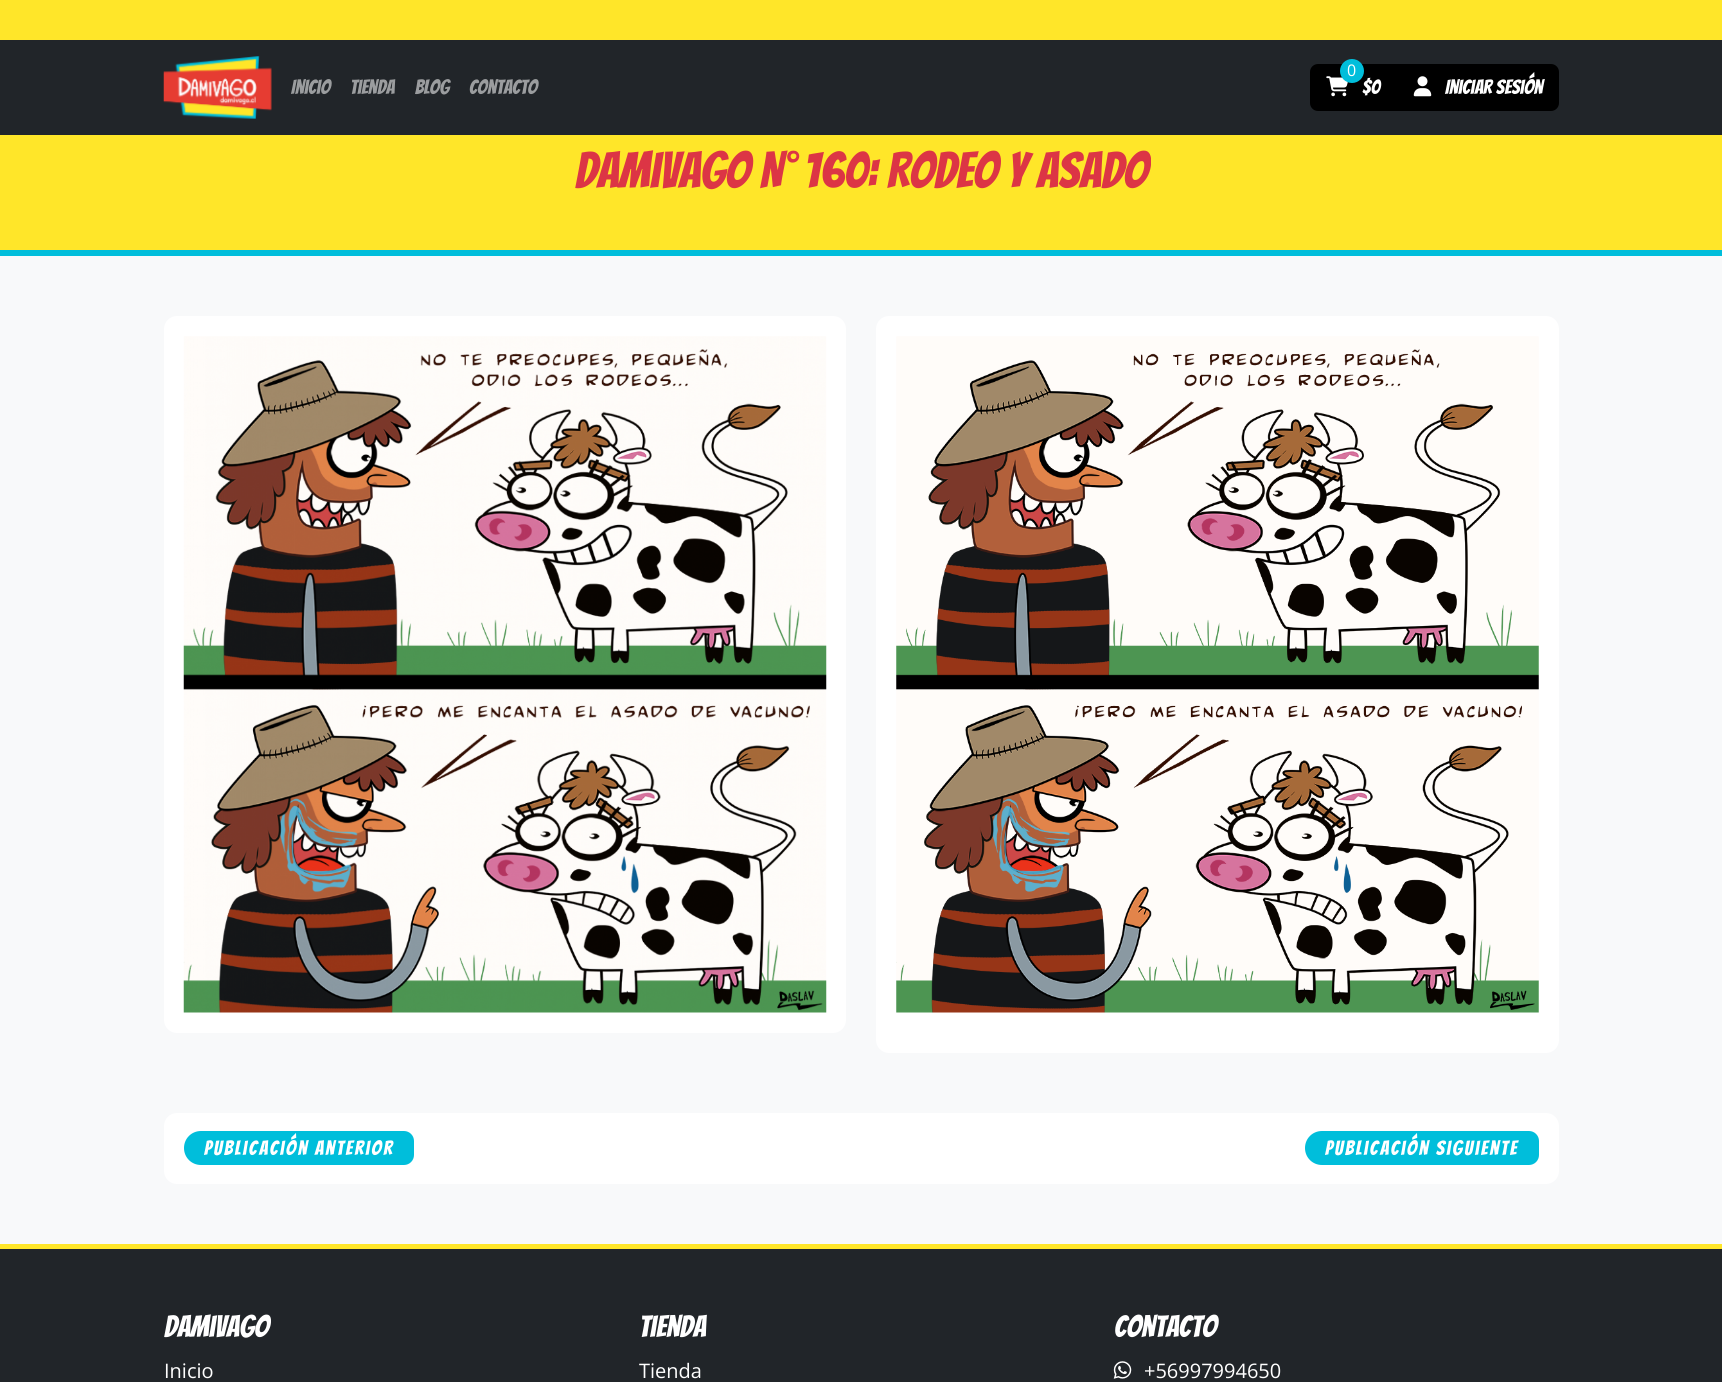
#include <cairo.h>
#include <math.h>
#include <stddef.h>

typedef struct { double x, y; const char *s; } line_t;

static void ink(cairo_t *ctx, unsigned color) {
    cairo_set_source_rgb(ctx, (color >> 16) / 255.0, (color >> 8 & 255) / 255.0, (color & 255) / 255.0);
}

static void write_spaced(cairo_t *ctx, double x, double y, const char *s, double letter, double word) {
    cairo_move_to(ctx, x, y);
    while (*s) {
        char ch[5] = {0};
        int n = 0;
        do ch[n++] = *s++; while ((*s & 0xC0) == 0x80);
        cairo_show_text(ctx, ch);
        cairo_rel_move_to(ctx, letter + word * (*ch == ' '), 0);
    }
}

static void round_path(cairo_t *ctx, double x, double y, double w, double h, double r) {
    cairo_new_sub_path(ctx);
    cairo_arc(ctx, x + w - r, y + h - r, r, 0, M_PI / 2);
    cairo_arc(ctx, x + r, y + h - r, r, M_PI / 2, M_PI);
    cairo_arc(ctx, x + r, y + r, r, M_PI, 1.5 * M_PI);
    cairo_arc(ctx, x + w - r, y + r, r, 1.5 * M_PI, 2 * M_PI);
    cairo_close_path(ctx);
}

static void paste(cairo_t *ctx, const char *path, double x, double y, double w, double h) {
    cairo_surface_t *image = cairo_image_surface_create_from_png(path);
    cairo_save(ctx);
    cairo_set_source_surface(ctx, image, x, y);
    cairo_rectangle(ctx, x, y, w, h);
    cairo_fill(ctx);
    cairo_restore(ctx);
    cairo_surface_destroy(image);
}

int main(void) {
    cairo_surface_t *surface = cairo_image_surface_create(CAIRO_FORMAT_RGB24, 1722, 1382);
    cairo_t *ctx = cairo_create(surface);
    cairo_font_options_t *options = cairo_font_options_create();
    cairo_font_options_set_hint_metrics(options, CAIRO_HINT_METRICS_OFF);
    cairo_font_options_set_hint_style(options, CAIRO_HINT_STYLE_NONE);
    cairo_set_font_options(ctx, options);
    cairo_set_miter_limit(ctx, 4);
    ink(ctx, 0xF8F9FA);
    cairo_paint(ctx);
    ink(ctx, 0xFFE629);
    cairo_rectangle(ctx, 0, 0, 1722, 250);
    cairo_fill(ctx);
    ink(ctx, 0x212529);
    cairo_rectangle(ctx, 0, 40, 1722, 95);
    cairo_fill(ctx);
    paste(ctx, "media/1.png", 163, 56, 109, 63);
    cairo_select_font_face(ctx, "Bangers", CAIRO_FONT_SLANT_NORMAL, CAIRO_FONT_WEIGHT_NORMAL);
    cairo_set_font_size(ctx, 20);
    ink(ctx, 0x9B9D9F);
    {
        static const line_t items[] = {
            {291, 94, "Inicio"},
            {350, 94, "Tienda"},
            {415, 94, "Blog"},
            {469, 94, "Contacto"},
        };
        for (size_t i = 0; i < sizeof items / sizeof *items; i++) {
            cairo_move_to(ctx, items[i].x, items[i].y);
            cairo_show_text(ctx, items[i].s);
        }
    }
    ink(ctx, 0x000000);
    round_path(ctx, 1310, 64, 249, 47, 8);
    cairo_fill(ctx);
    paste(ctx, "media/2.png", 1326, 76, 22, 21);
    ink(ctx, 0xFFFFFF);
    cairo_move_to(ctx, 1362, 94);
    cairo_show_text(ctx, "$0");
    ink(ctx, 0x00BEDB);
    cairo_new_path(ctx);
    cairo_arc(ctx, 1352, 71, 12, 0, 2 * M_PI);
    cairo_fill(ctx);
    cairo_select_font_face(ctx, "Open Sans", CAIRO_FONT_SLANT_NORMAL, CAIRO_FONT_WEIGHT_NORMAL);
    cairo_set_font_size(ctx, 16);
    ink(ctx, 0xFFFFFF);
    cairo_move_to(ctx, 1347, 76);
    cairo_show_text(ctx, "0");
    paste(ctx, "media/3.png", 1413, 76, 19, 21);
    cairo_select_font_face(ctx, "Bangers", CAIRO_FONT_SLANT_NORMAL, CAIRO_FONT_WEIGHT_NORMAL);
    cairo_set_font_size(ctx, 20);
    cairo_move_to(ctx, 1445, 94);
    cairo_show_text(ctx, "Iniciar sesión");
    ink(ctx, 0x00BEDB);
    cairo_rectangle(ctx, 0, 250, 1722, 6);
    cairo_fill(ctx);
    cairo_set_font_size(ctx, 50);
    ink(ctx, 0xDC3545);
    cairo_move_to(ctx, 575, 188);
    cairo_show_text(ctx, "Damivago N° 160: Rodeo y Asado");
    ink(ctx, 0xFFFFFF);
    round_path(ctx, 164, 316, 682, 717, 13);
    cairo_fill(ctx);
    paste(ctx, "media/4.png", 183, 336, 644, 677);
    round_path(ctx, 876, 316, 683, 737, 13);
    cairo_fill(ctx);
    paste(ctx, "media/5.png", 896, 336, 643, 677);
    round_path(ctx, 164, 1113, 1395, 71, 13);
    cairo_fill(ctx);
    ink(ctx, 0x00BEDB);
    cairo_new_path(ctx);
    cairo_move_to(ctx, 201, 1131);
    cairo_line_to(ctx, 394, 1131);
    cairo_line_to(ctx, 394, 1165);
    cairo_line_to(ctx, 201, 1165);
    cairo_curve_to(ctx, 191.5, 1165, 184, 1157.5, 184, 1148);
    cairo_curve_to(ctx, 184, 1138.5, 191.5, 1131, 201, 1131);
    cairo_close_path(ctx);
    cairo_fill(ctx);
    cairo_set_font_size(ctx, 20);
    ink(ctx, 0xFFFFFF);
    write_spaced(ctx, 204, 1155, "Publicación anterior", 2, 0);
    ink(ctx, 0x00BEDB);
    cairo_new_path(ctx);
    cairo_move_to(ctx, 394, 1131);
    cairo_line_to(ctx, 404, 1131);
    cairo_curve_to(ctx, 409.5, 1131, 414, 1135.5, 414, 1141);
    cairo_line_to(ctx, 414, 1155);
    cairo_curve_to(ctx, 414, 1160.5, 409.5, 1165, 404, 1165);
    cairo_line_to(ctx, 394, 1165);
    cairo_close_path(ctx);
    cairo_fill(ctx);
    cairo_new_path(ctx);
    cairo_move_to(ctx, 1322, 1131);
    cairo_line_to(ctx, 1519, 1131);
    cairo_line_to(ctx, 1519, 1165);
    cairo_line_to(ctx, 1322, 1165);
    cairo_curve_to(ctx, 1312.5, 1165, 1305, 1157.5, 1305, 1148);
    cairo_curve_to(ctx, 1305, 1138.5, 1312.5, 1131, 1322, 1131);
    cairo_close_path(ctx);
    cairo_fill(ctx);
    ink(ctx, 0xFFFFFF);
    write_spaced(ctx, 1325, 1155, "Publicación siguiente", 2, 0);
    ink(ctx, 0x00BEDB);
    cairo_new_path(ctx);
    cairo_move_to(ctx, 1519, 1131);
    cairo_line_to(ctx, 1529, 1131);
    cairo_curve_to(ctx, 1534.5, 1131, 1539, 1135.5, 1539, 1141);
    cairo_line_to(ctx, 1539, 1155);
    cairo_curve_to(ctx, 1539, 1160.5, 1534.5, 1165, 1529, 1165);
    cairo_line_to(ctx, 1519, 1165);
    cairo_close_path(ctx);
    cairo_fill(ctx);
    ink(ctx, 0x212529);
    cairo_rectangle(ctx, 0, 1249, 1722, 133);
    cairo_fill(ctx);
    ink(ctx, 0xFFE629);
    cairo_rectangle(ctx, 0, 1244, 1722, 5);
    cairo_fill(ctx);
    cairo_set_font_size(ctx, 30);
    ink(ctx, 0xFFFFFF);
    cairo_move_to(ctx, 164, 1337);
    cairo_show_text(ctx, "Damivago");
    cairo_select_font_face(ctx, "Open Sans", CAIRO_FONT_SLANT_NORMAL, CAIRO_FONT_WEIGHT_NORMAL);
    cairo_set_font_size(ctx, 20);
    cairo_move_to(ctx, 164, 1378);
    cairo_show_text(ctx, "Inicio");
    cairo_select_font_face(ctx, "Bangers", CAIRO_FONT_SLANT_NORMAL, CAIRO_FONT_WEIGHT_NORMAL);
    cairo_set_font_size(ctx, 30);
    cairo_move_to(ctx, 639, 1337);
    cairo_show_text(ctx, "Tienda");
    cairo_select_font_face(ctx, "Open Sans", CAIRO_FONT_SLANT_NORMAL, CAIRO_FONT_WEIGHT_NORMAL);
    cairo_set_font_size(ctx, 20);
    cairo_move_to(ctx, 639, 1378);
    cairo_show_text(ctx, "Tienda");
    cairo_select_font_face(ctx, "Bangers", CAIRO_FONT_SLANT_NORMAL, CAIRO_FONT_WEIGHT_NORMAL);
    cairo_set_font_size(ctx, 30);
    cairo_move_to(ctx, 1114, 1337);
    cairo_show_text(ctx, "Contacto");
    paste(ctx, "media/6.png", 1113, 1361, 19, 18);
    cairo_select_font_face(ctx, "Open Sans", CAIRO_FONT_SLANT_NORMAL, CAIRO_FONT_WEIGHT_NORMAL);
    cairo_set_font_size(ctx, 20);
    cairo_move_to(ctx, 1144, 1378);
    cairo_show_text(ctx, "+56997994650");
    cairo_surface_write_to_png(surface, "image.png");
    cairo_font_options_destroy(options);
    cairo_destroy(ctx);
    cairo_surface_destroy(surface);
    return 0;
}
